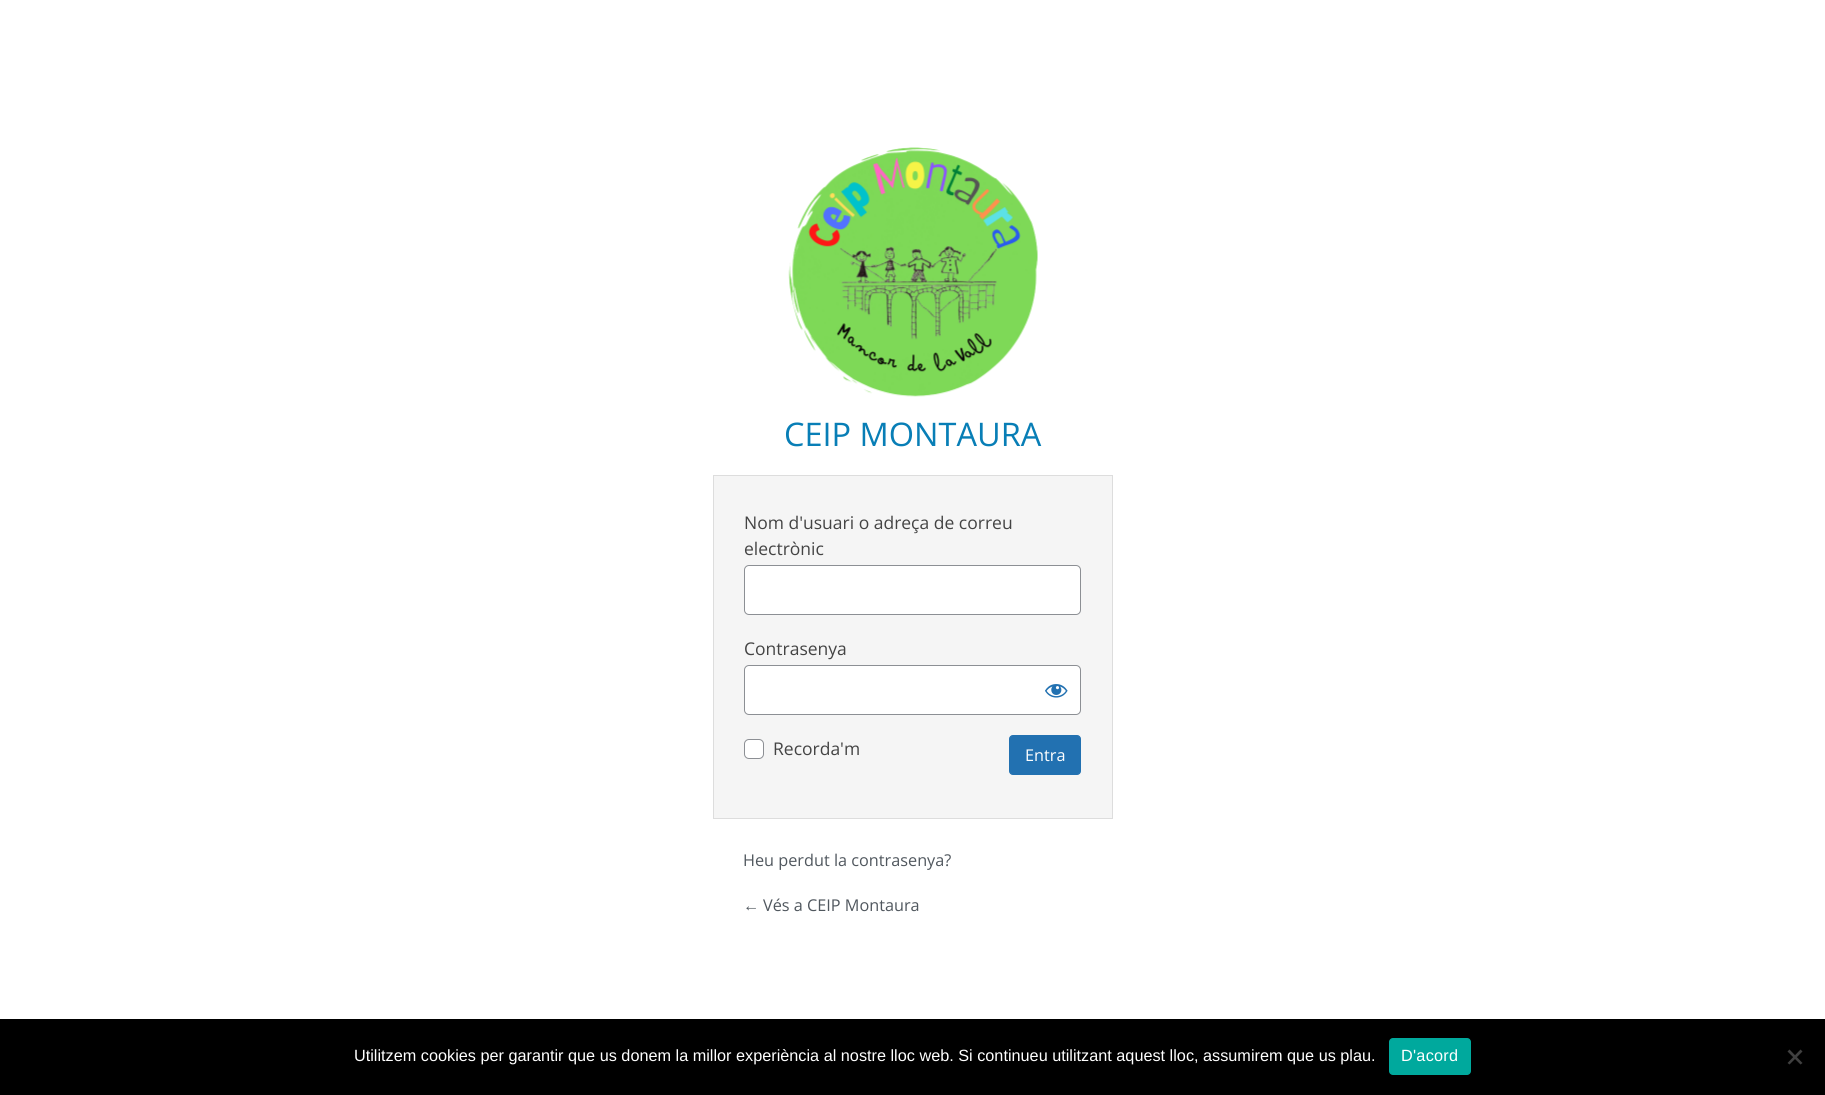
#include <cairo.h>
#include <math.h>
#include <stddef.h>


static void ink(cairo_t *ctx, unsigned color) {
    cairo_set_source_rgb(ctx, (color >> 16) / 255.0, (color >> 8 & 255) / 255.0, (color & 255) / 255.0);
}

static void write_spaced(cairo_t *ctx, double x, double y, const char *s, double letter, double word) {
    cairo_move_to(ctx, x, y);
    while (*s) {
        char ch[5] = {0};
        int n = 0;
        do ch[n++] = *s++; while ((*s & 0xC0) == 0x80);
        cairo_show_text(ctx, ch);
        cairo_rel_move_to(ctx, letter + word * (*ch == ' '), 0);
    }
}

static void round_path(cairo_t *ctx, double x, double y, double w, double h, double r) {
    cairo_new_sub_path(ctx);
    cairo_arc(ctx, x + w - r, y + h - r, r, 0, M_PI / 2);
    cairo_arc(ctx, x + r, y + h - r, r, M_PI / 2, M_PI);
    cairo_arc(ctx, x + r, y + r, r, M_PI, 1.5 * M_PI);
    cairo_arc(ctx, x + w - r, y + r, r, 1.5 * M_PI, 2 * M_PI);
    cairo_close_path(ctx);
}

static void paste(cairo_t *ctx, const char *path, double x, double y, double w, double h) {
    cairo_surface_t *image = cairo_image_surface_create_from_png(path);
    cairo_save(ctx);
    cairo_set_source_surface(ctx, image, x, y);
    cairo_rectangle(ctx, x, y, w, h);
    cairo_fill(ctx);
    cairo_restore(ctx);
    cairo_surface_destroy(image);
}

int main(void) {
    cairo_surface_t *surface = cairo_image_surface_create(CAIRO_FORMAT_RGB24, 1825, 1095);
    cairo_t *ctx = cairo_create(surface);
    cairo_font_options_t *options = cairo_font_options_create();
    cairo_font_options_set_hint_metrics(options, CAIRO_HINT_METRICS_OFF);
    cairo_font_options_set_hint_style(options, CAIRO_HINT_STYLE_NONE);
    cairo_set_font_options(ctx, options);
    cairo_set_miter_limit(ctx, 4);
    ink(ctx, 0xFFFFFF);
    cairo_paint(ctx);
    paste(ctx, "media/1.png", 788, 147, 250, 250);
    cairo_select_font_face(ctx, "Open Sans", CAIRO_FONT_SLANT_NORMAL, CAIRO_FONT_WEIGHT_NORMAL);
    cairo_set_font_size(ctx, 32.5);
    ink(ctx, 0x087EB6);
    cairo_move_to(ctx, 784, 446);
    cairo_show_text(ctx, "CEIP MONTAURA");
    ink(ctx, 0xF5F5F5);
    cairo_rectangle(ctx, 713.5, 475.5, 399, 343);
    cairo_fill_preserve(ctx);
    ink(ctx, 0xDDDDDD);
    cairo_set_line_width(ctx, 1);
    cairo_stroke(ctx);
    cairo_set_font_size(ctx, 17.5);
    ink(ctx, 0x444444);
    cairo_move_to(ctx, 744, 529);
    cairo_show_text(ctx, "Nom d'usuari o adreça de correu");
    cairo_move_to(ctx, 744, 555);
    cairo_show_text(ctx, "electrònic");
    ink(ctx, 0xFFFFFF);
    round_path(ctx, 744.5, 565.5, 336, 49, 4.5);
    cairo_fill_preserve(ctx);
    ink(ctx, 0x8C8F94);
    cairo_stroke(ctx);
    ink(ctx, 0x444444);
    cairo_move_to(ctx, 744, 655);
    cairo_show_text(ctx, "Contrasenya");
    ink(ctx, 0xFFFFFF);
    round_path(ctx, 744.5, 665.5, 336, 49, 4.5);
    cairo_fill_preserve(ctx);
    ink(ctx, 0x8C8F94);
    cairo_stroke(ctx);
    paste(ctx, "media/2.png", 1045, 684, 23, 14);
    ink(ctx, 0xFFFFFF);
    round_path(ctx, 744.5, 739.5, 19, 19, 4.5);
    cairo_fill_preserve(ctx);
    ink(ctx, 0x8C8F94);
    cairo_stroke(ctx);
    ink(ctx, 0x444444);
    cairo_move_to(ctx, 773, 755);
    cairo_show_text(ctx, "Recorda'm");
    ink(ctx, 0x2271B1);
    round_path(ctx, 1009.5, 735.5, 71, 39, 3.5);
    cairo_fill_preserve(ctx);
    cairo_stroke(ctx);
    cairo_set_font_size(ctx, 16.25);
    ink(ctx, 0xFFFFFF);
    cairo_move_to(ctx, 1025, 761);
    cairo_show_text(ctx, "Entra");
    ink(ctx, 0x50575E);
    cairo_move_to(ctx, 743, 866);
    cairo_show_text(ctx, "Heu perdut la contrasenya?");
    cairo_select_font_face(ctx, "Liberation Sans", CAIRO_FONT_SLANT_NORMAL, CAIRO_FONT_WEIGHT_NORMAL);
    cairo_move_to(ctx, 743, 911);
    cairo_show_text(ctx, "←");
    cairo_select_font_face(ctx, "Open Sans", CAIRO_FONT_SLANT_NORMAL, CAIRO_FONT_WEIGHT_NORMAL);
    cairo_move_to(ctx, 763, 911);
    cairo_show_text(ctx, "Vés a CEIP Montaura");
    ink(ctx, 0x000000);
    cairo_rectangle(ctx, 0, 1019, 1825, 76);
    cairo_fill(ctx);
    cairo_select_font_face(ctx, "Liberation Sans", CAIRO_FONT_SLANT_NORMAL, CAIRO_FONT_WEIGHT_NORMAL);
    ink(ctx, 0xFFFFFF);
    cairo_move_to(ctx, 354, 1061);
    cairo_show_text(ctx, "Utilitzem cookies per garantir que us donem la millor experiència al nostre lloc web. Si continueu utilitzant aquest lloc, assumirem que us plau.");
    ink(ctx, 0x00A99D);
    round_path(ctx, 1389, 1038, 82, 37, 4);
    cairo_fill(ctx);
    ink(ctx, 0xFFFFFF);
    write_spaced(ctx, 1401, 1061, "D'acord", 0.25, 0);
    ink(ctx, 0x404040);
    cairo_new_path(ctx);
    cairo_move_to(ctx, 1800.5, 1049.5);
    cairo_line_to(ctx, 1802.5, 1051.5);
    cairo_line_to(ctx, 1789.5, 1064.5);
    cairo_line_to(ctx, 1787.5, 1063);
    cairo_close_path(ctx);
    cairo_fill(ctx);
    cairo_new_path(ctx);
    cairo_move_to(ctx, 1787.5, 1051.5);
    cairo_line_to(ctx, 1789.5, 1049.5);
    cairo_line_to(ctx, 1802.5, 1063);
    cairo_line_to(ctx, 1800.5, 1064.5);
    cairo_close_path(ctx);
    cairo_fill(ctx);
    cairo_surface_write_to_png(surface, "image.png");
    cairo_font_options_destroy(options);
    cairo_destroy(ctx);
    cairo_surface_destroy(surface);
    return 0;
}
